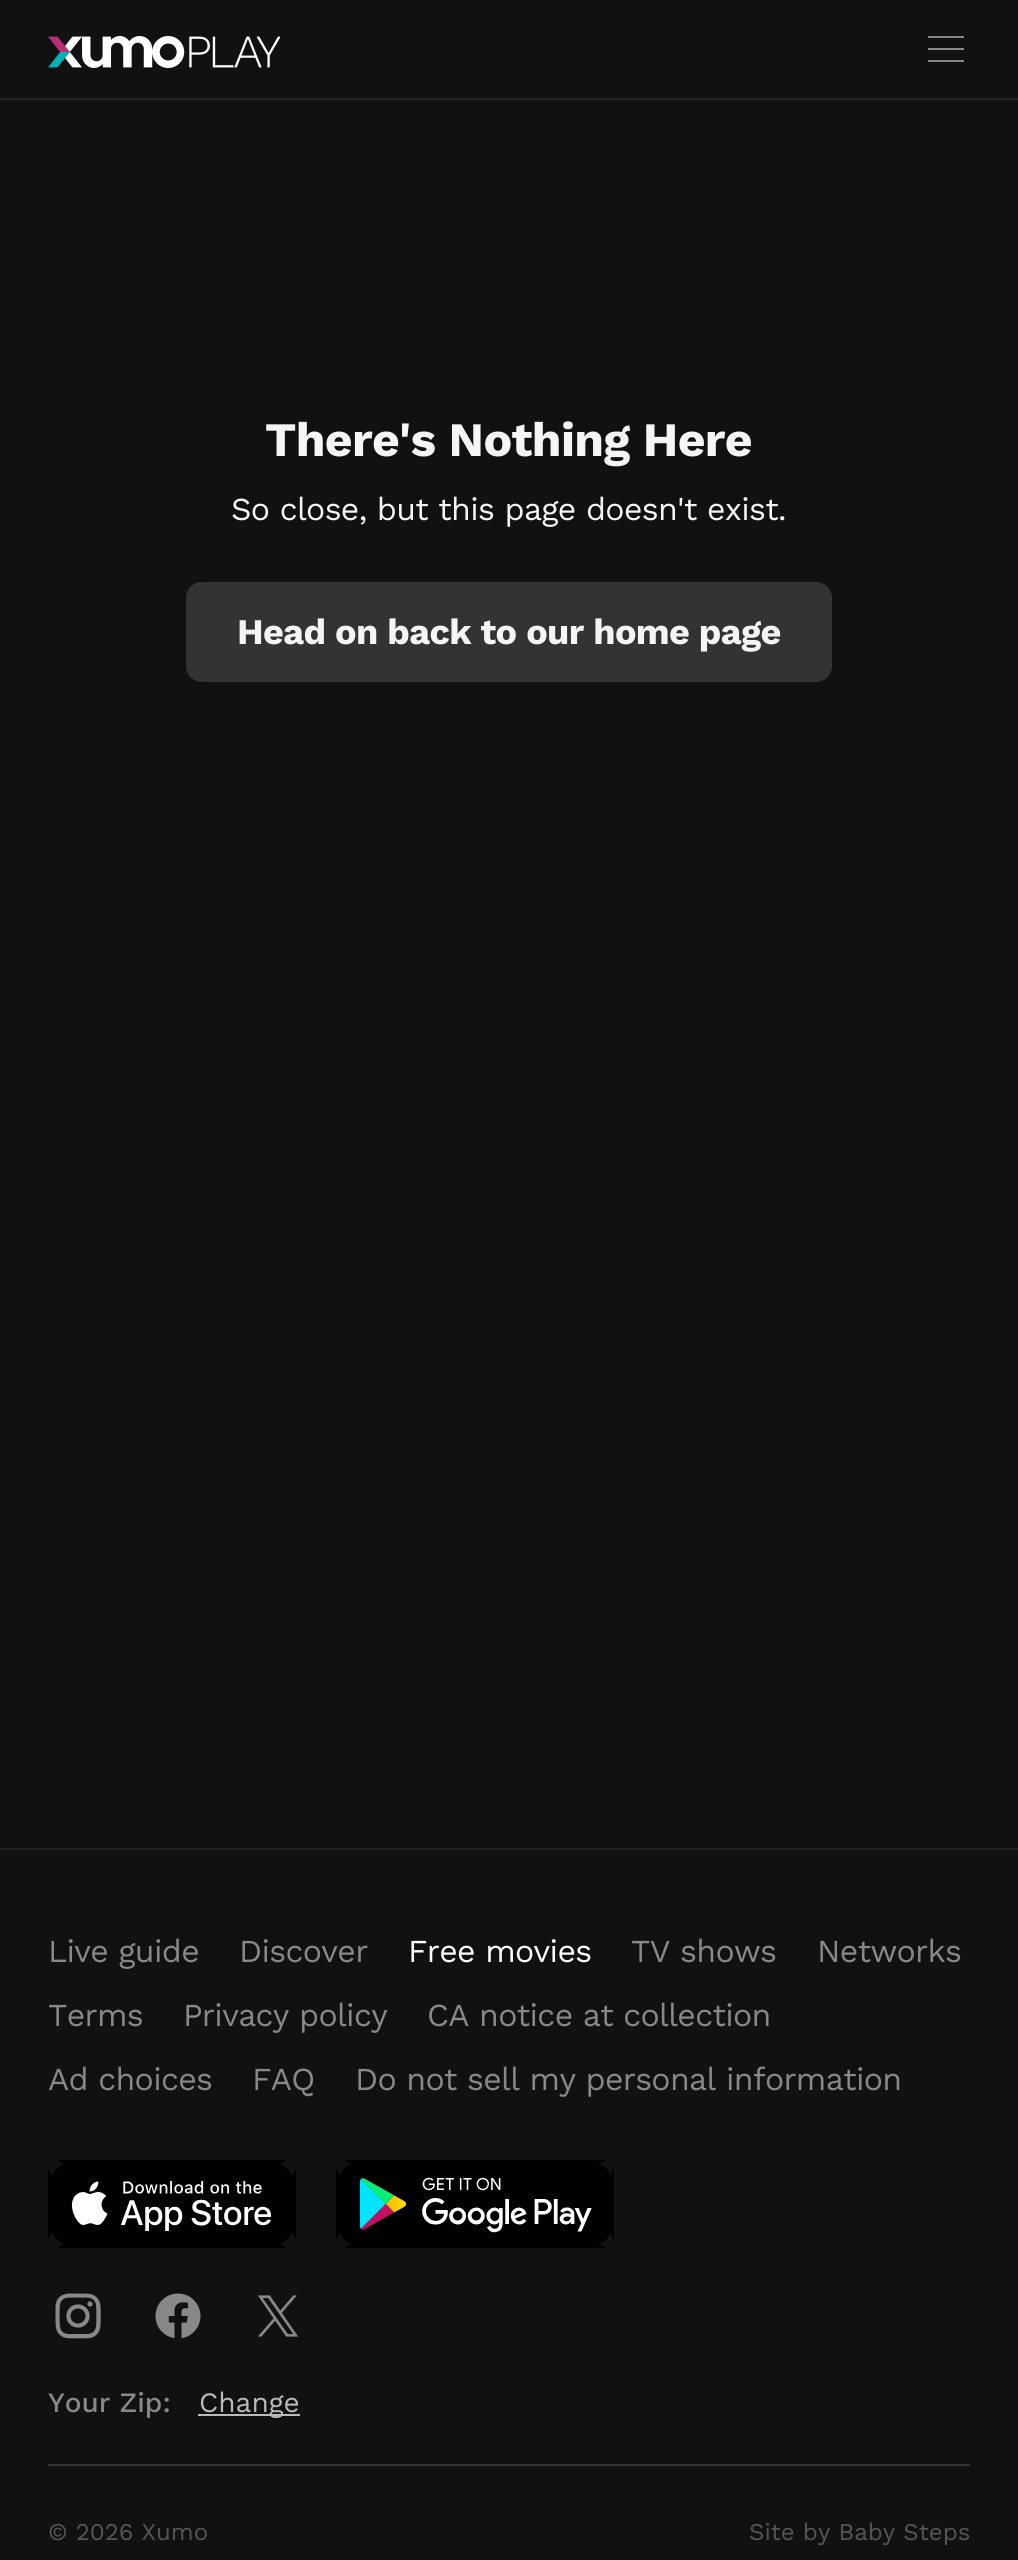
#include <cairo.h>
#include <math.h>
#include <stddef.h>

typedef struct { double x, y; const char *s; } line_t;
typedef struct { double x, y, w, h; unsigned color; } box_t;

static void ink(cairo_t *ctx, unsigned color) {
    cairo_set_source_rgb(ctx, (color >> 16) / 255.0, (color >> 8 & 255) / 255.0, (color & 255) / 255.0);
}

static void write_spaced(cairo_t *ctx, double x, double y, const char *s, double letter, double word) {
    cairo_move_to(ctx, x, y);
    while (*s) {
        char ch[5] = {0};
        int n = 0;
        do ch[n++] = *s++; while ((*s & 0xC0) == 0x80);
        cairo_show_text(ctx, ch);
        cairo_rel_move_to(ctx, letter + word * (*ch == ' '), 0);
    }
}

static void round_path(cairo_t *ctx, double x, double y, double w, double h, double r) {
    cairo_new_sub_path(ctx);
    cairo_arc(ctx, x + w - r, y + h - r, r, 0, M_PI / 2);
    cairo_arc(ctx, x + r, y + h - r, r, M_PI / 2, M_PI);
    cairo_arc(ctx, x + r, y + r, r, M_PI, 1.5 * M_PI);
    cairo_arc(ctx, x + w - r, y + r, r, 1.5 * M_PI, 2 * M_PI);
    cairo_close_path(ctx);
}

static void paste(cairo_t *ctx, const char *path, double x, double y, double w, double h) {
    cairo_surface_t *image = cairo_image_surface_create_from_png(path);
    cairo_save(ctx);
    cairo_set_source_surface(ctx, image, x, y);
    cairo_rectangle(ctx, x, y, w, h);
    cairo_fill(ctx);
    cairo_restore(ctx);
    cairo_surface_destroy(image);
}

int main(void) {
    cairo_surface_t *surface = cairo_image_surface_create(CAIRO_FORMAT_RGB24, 1018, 2560);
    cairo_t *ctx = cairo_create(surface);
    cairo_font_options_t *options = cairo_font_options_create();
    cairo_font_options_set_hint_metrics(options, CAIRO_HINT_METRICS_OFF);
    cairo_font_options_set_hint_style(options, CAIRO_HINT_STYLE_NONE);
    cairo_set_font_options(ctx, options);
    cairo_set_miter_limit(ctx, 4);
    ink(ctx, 0x111111);
    cairo_paint(ctx);
    paste(ctx, "media/1.png", 48, 36, 232, 32);
    {
        static const box_t items[] = {
            {928, 48, 36, 2, 0x888888},
            {928, 36, 36, 2, 0x888888},
            {928, 60, 36, 2, 0x888888},
            {0, 98, 1018, 2, 0x222222},
        };
        for (size_t i = 0; i < sizeof items / sizeof *items; i++) {
            ink(ctx, items[i].color);
            cairo_rectangle(ctx, items[i].x, items[i].y, items[i].w, items[i].h);
            cairo_fill(ctx);
        }
    }
    cairo_select_font_face(ctx, "Work Sans", CAIRO_FONT_SLANT_NORMAL, CAIRO_FONT_WEIGHT_BOLD);
    cairo_set_font_size(ctx, 48);
    ink(ctx, 0xF5F5F5);
    write_spaced(ctx, 265, 456, "There's Nothing Here", -0.65, 0);
    cairo_select_font_face(ctx, "Work Sans", CAIRO_FONT_SLANT_NORMAL, CAIRO_FONT_WEIGHT_NORMAL);
    cairo_set_font_size(ctx, 32);
    write_spaced(ctx, 231, 520, "So close, but this page doesn't exist.", -0.65, 0);
    ink(ctx, 0x333333);
    round_path(ctx, 186, 582, 646, 100, 16);
    cairo_fill(ctx);
    cairo_select_font_face(ctx, "Work Sans", CAIRO_FONT_SLANT_NORMAL, CAIRO_FONT_WEIGHT_BOLD);
    cairo_set_font_size(ctx, 36);
    ink(ctx, 0xF5F5F5);
    write_spaced(ctx, 237, 644, "Head on back to our home page", -0.65, 0);
    ink(ctx, 0x222222);
    cairo_rectangle(ctx, 0, 1848, 1018, 2);
    cairo_fill(ctx);
    cairo_select_font_face(ctx, "Work Sans", CAIRO_FONT_SLANT_NORMAL, CAIRO_FONT_WEIGHT_NORMAL);
    cairo_set_font_size(ctx, 32);
    ink(ctx, 0x888888);
    write_spaced(ctx, 48, 1962, "Live guide", -0.65, 0);
    write_spaced(ctx, 239, 1962, "Discover", -0.65, 0);
    ink(ctx, 0xFFFFFF);
    write_spaced(ctx, 408, 1962, "Free movies", -0.65, 0);
    ink(ctx, 0x888888);
    {
        static const line_t items[] = {
            {631, 1962, "TV shows"},
            {817, 1962, "Networks"},
            {48, 2026, "Terms"},
            {183, 2026, "Privacy policy"},
            {427, 2026, "CA notice at collection"},
            {48, 2090, "Ad choices"},
            {252, 2090, "FAQ"},
            {355, 2090, "Do not sell my personal information"},
        };
        for (size_t i = 0; i < sizeof items / sizeof *items; i++) {
            write_spaced(ctx, items[i].x, items[i].y, items[i].s, -0.65, 0);
        }
    }
    paste(ctx, "media/2.png", 48, 2160, 248, 88);
    paste(ctx, "media/3.png", 336, 2160, 278, 88);
    paste(ctx, "media/4.png", 55, 2293, 46, 46);
    paste(ctx, "media/5.png", 155, 2293, 46, 46);
    paste(ctx, "media/6.png", 258, 2295, 40, 42);
    cairo_select_font_face(ctx, "Work Sans Medium", CAIRO_FONT_SLANT_NORMAL, CAIRO_FONT_WEIGHT_NORMAL);
    cairo_set_font_size(ctx, 28);
    cairo_move_to(ctx, 48, 2412);
    cairo_show_text(ctx, "Your Zip:");
    ink(ctx, 0xBBBBBB);
    cairo_rectangle(ctx, 198, 2414, 102, 2);
    cairo_fill(ctx);
    cairo_select_font_face(ctx, "Work Sans", CAIRO_FONT_SLANT_NORMAL, CAIRO_FONT_WEIGHT_NORMAL);
    cairo_move_to(ctx, 199, 2412);
    cairo_show_text(ctx, "Change");
    ink(ctx, 0x333333);
    cairo_rectangle(ctx, 48, 2464, 922, 2);
    cairo_fill(ctx);
    cairo_set_font_size(ctx, 24);
    ink(ctx, 0x555555);
    cairo_move_to(ctx, 48, 2540);
    cairo_show_text(ctx, "© 2026 Xumo");
    cairo_move_to(ctx, 749, 2540);
    cairo_show_text(ctx, "Site by Baby Steps");
    cairo_surface_write_to_png(surface, "image.png");
    cairo_font_options_destroy(options);
    cairo_destroy(ctx);
    cairo_surface_destroy(surface);
    return 0;
}
